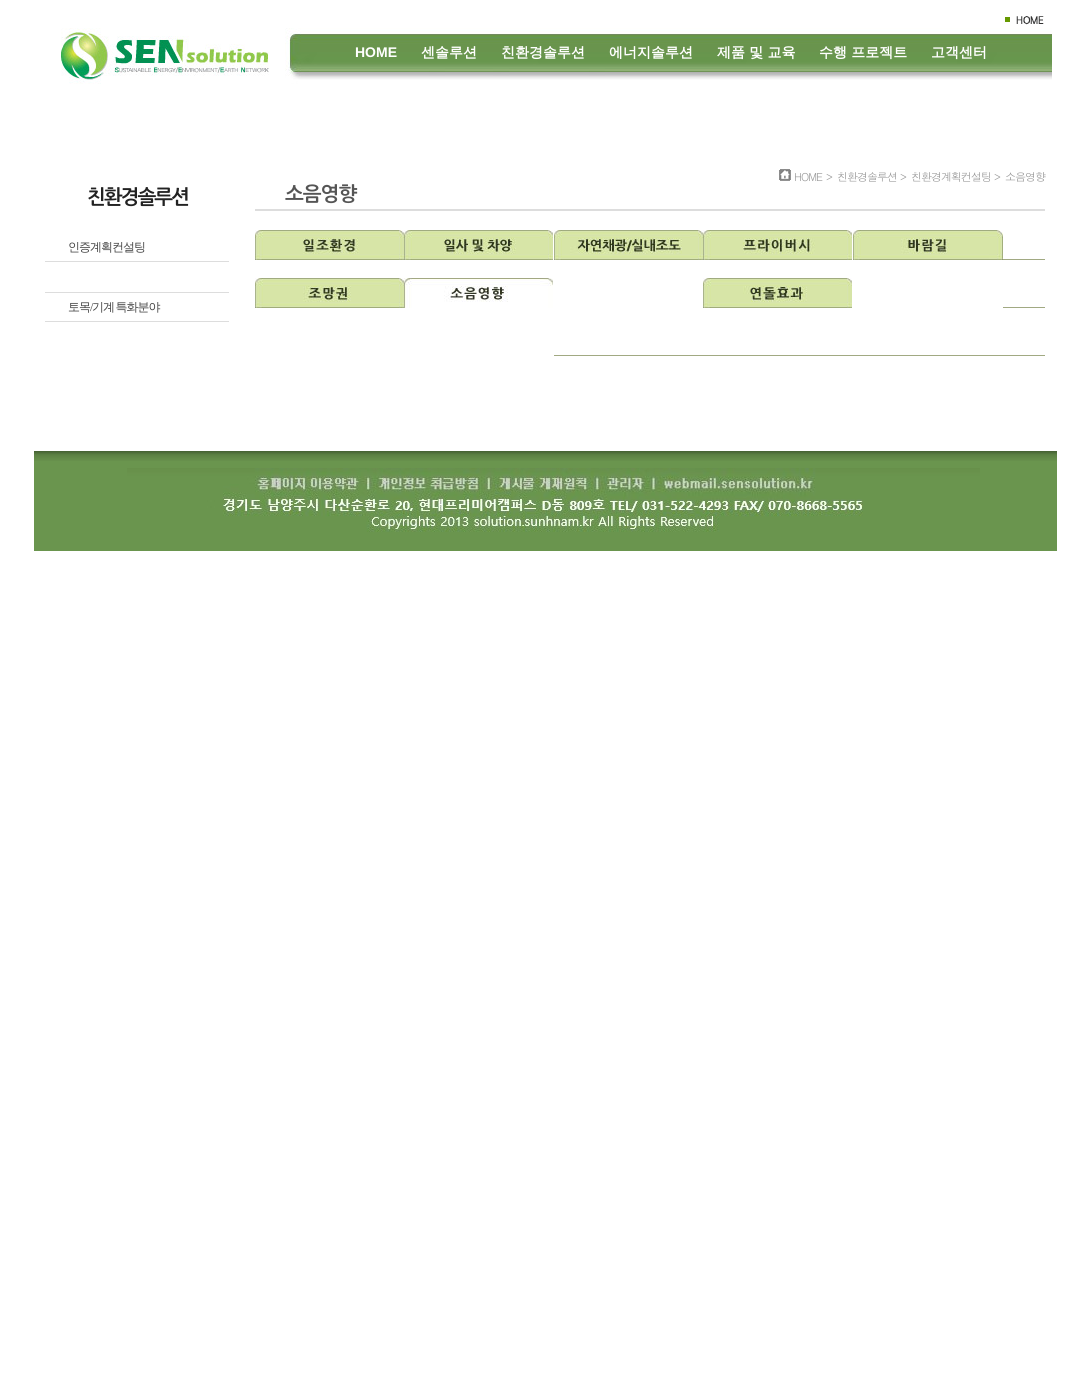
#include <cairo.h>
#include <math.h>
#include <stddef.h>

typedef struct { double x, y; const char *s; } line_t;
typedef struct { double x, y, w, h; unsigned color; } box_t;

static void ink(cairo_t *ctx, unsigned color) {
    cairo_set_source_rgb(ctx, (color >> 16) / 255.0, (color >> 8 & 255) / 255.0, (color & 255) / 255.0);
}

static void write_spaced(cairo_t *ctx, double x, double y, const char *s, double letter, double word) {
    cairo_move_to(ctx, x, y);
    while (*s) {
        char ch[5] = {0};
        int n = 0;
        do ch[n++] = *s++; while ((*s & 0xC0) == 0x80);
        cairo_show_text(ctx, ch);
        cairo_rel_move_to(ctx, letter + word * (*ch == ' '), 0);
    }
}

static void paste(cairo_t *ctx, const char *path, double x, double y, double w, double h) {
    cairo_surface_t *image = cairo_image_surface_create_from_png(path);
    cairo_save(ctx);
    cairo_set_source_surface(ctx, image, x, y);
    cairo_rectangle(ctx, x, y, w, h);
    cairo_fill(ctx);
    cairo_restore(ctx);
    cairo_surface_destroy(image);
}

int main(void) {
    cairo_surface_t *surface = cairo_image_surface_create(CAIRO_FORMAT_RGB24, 1090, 1396);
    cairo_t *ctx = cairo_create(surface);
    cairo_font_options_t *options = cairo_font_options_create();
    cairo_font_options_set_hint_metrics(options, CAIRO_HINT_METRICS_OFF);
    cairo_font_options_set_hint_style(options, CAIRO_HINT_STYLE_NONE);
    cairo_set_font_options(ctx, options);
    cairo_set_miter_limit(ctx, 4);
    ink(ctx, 0xFFFFFF);
    cairo_paint(ctx);
    paste(ctx, "media/1.png", 1005, 16, 39, 9);
    paste(ctx, "media/2.png", 61, 28, 991, 56);
    cairo_select_font_face(ctx, "Liberation Sans", CAIRO_FONT_SLANT_NORMAL, CAIRO_FONT_WEIGHT_BOLD);
    cairo_set_font_size(ctx, 14);
    ink(ctx, 0xFFFFFF);
    cairo_move_to(ctx, 355, 57);
    cairo_show_text(ctx, "HOME");
    cairo_select_font_face(ctx, "WenQuanYi Zen Hei", CAIRO_FONT_SLANT_NORMAL, CAIRO_FONT_WEIGHT_BOLD);
    {
        static const line_t items[] = {
            {421, 57, "센솔루션"},
            {501, 57, "친환경솔루션"},
            {609, 57, "에너지솔루션"},
            {717, 57, "제품 및 교육"},
            {819, 57, "수행 프로젝트"},
            {931, 57, "고객센터"},
        };
        for (size_t i = 0; i < sizeof items / sizeof *items; i++) {
            cairo_move_to(ctx, items[i].x, items[i].y);
            cairo_show_text(ctx, items[i].s);
        }
    }
    cairo_select_font_face(ctx, "NanumGothic", CAIRO_FONT_SLANT_NORMAL, CAIRO_FONT_WEIGHT_BOLD);
    cairo_set_font_size(ctx, 20);
    ink(ctx, 0x222222);
    write_spaced(ctx, 87, 204, "친환경솔루션", -2, 0);
    ink(ctx, 0xDDDDDD);
    cairo_rectangle(ctx, 45, 261, 184, 1);
    cairo_fill(ctx);
    cairo_select_font_face(ctx, "WenQuanYi Zen Hei Medium", CAIRO_FONT_SLANT_NORMAL, CAIRO_FONT_WEIGHT_NORMAL);
    cairo_set_font_size(ctx, 12);
    ink(ctx, 0x444444);
    write_spaced(ctx, 68, 251, "인증계획컨설팅", -1, 0);
    ink(ctx, 0xDDDDDD);
    cairo_rectangle(ctx, 45, 292, 184, 1);
    cairo_fill(ctx);
    cairo_rectangle(ctx, 45, 321, 184, 1);
    cairo_fill(ctx);
    ink(ctx, 0x444444);
    write_spaced(ctx, 68, 311, "토목", -1, 0);
    cairo_select_font_face(ctx, "Liberation Serif", CAIRO_FONT_SLANT_NORMAL, CAIRO_FONT_WEIGHT_NORMAL);
    write_spaced(ctx, 90, 311, "/", -1, 0);
    cairo_select_font_face(ctx, "WenQuanYi Zen Hei Medium", CAIRO_FONT_SLANT_NORMAL, CAIRO_FONT_WEIGHT_NORMAL);
    write_spaced(ctx, 92, 311, "기계 특화분야", -1, -1);
    paste(ctx, "media/3.png", 779, 169, 12, 12);
    cairo_select_font_face(ctx, "Dotum", CAIRO_FONT_SLANT_NORMAL, CAIRO_FONT_WEIGHT_NORMAL);
    cairo_set_font_size(ctx, 11);
    ink(ctx, 0x999999);
    write_spaced(ctx, 794, 181, "HOME", -1, 0);
    cairo_move_to(ctx, 826, 181);
    cairo_show_text(ctx, ">");
    write_spaced(ctx, 837, 181, "친환경솔루션", -1, 0);
    cairo_move_to(ctx, 900, 181);
    cairo_show_text(ctx, ">");
    write_spaced(ctx, 911, 181, "친환경계획컨설팅", -1, 0);
    cairo_move_to(ctx, 994, 181);
    cairo_show_text(ctx, ">");
    write_spaced(ctx, 1005, 181, "소음영향", -1, 0);
    ink(ctx, 0xDDDDDD);
    cairo_rectangle(ctx, 255, 209, 790, 2);
    cairo_fill(ctx);
    cairo_select_font_face(ctx, "NanumGothic", CAIRO_FONT_SLANT_NORMAL, CAIRO_FONT_WEIGHT_BOLD);
    cairo_set_font_size(ctx, 20);
    ink(ctx, 0x555555);
    write_spaced(ctx, 285, 201, "소음영향", -1, 0);
    paste(ctx, "media/4.png", 255, 230, 149, 30);
    paste(ctx, "media/5.png", 404, 230, 149, 30);
    paste(ctx, "media/6.png", 554, 230, 149, 30);
    paste(ctx, "media/7.png", 703, 230, 149, 30);
    paste(ctx, "media/8.png", 853, 230, 150, 30);
    ink(ctx, 0xA1A982);
    cairo_rectangle(ctx, 1003, 259, 42, 1);
    cairo_fill(ctx);
    paste(ctx, "media/9.png", 255, 278, 149, 30);
    paste(ctx, "media/10.png", 404, 278, 149, 30);
    paste(ctx, "media/11.png", 703, 278, 149, 30);
    {
        static const box_t items[] = {
            {1003, 307, 42, 1, 0xA1A982},
            {554, 355, 491, 1, 0xA1A982},
            {34, 451, 1023, 100, 0x6A954E},
        };
        for (size_t i = 0; i < sizeof items / sizeof *items; i++) {
            ink(ctx, items[i].color);
            cairo_rectangle(ctx, items[i].x, items[i].y, items[i].w, items[i].h);
            cairo_fill(ctx);
        }
    }
    paste(ctx, "media/12.png", 34, 451, 1023, 10);
    paste(ctx, "media/13.png", 127, 468, 853, 64);
    cairo_surface_write_to_png(surface, "image.png");
    cairo_font_options_destroy(options);
    cairo_destroy(ctx);
    cairo_surface_destroy(surface);
    return 0;
}
